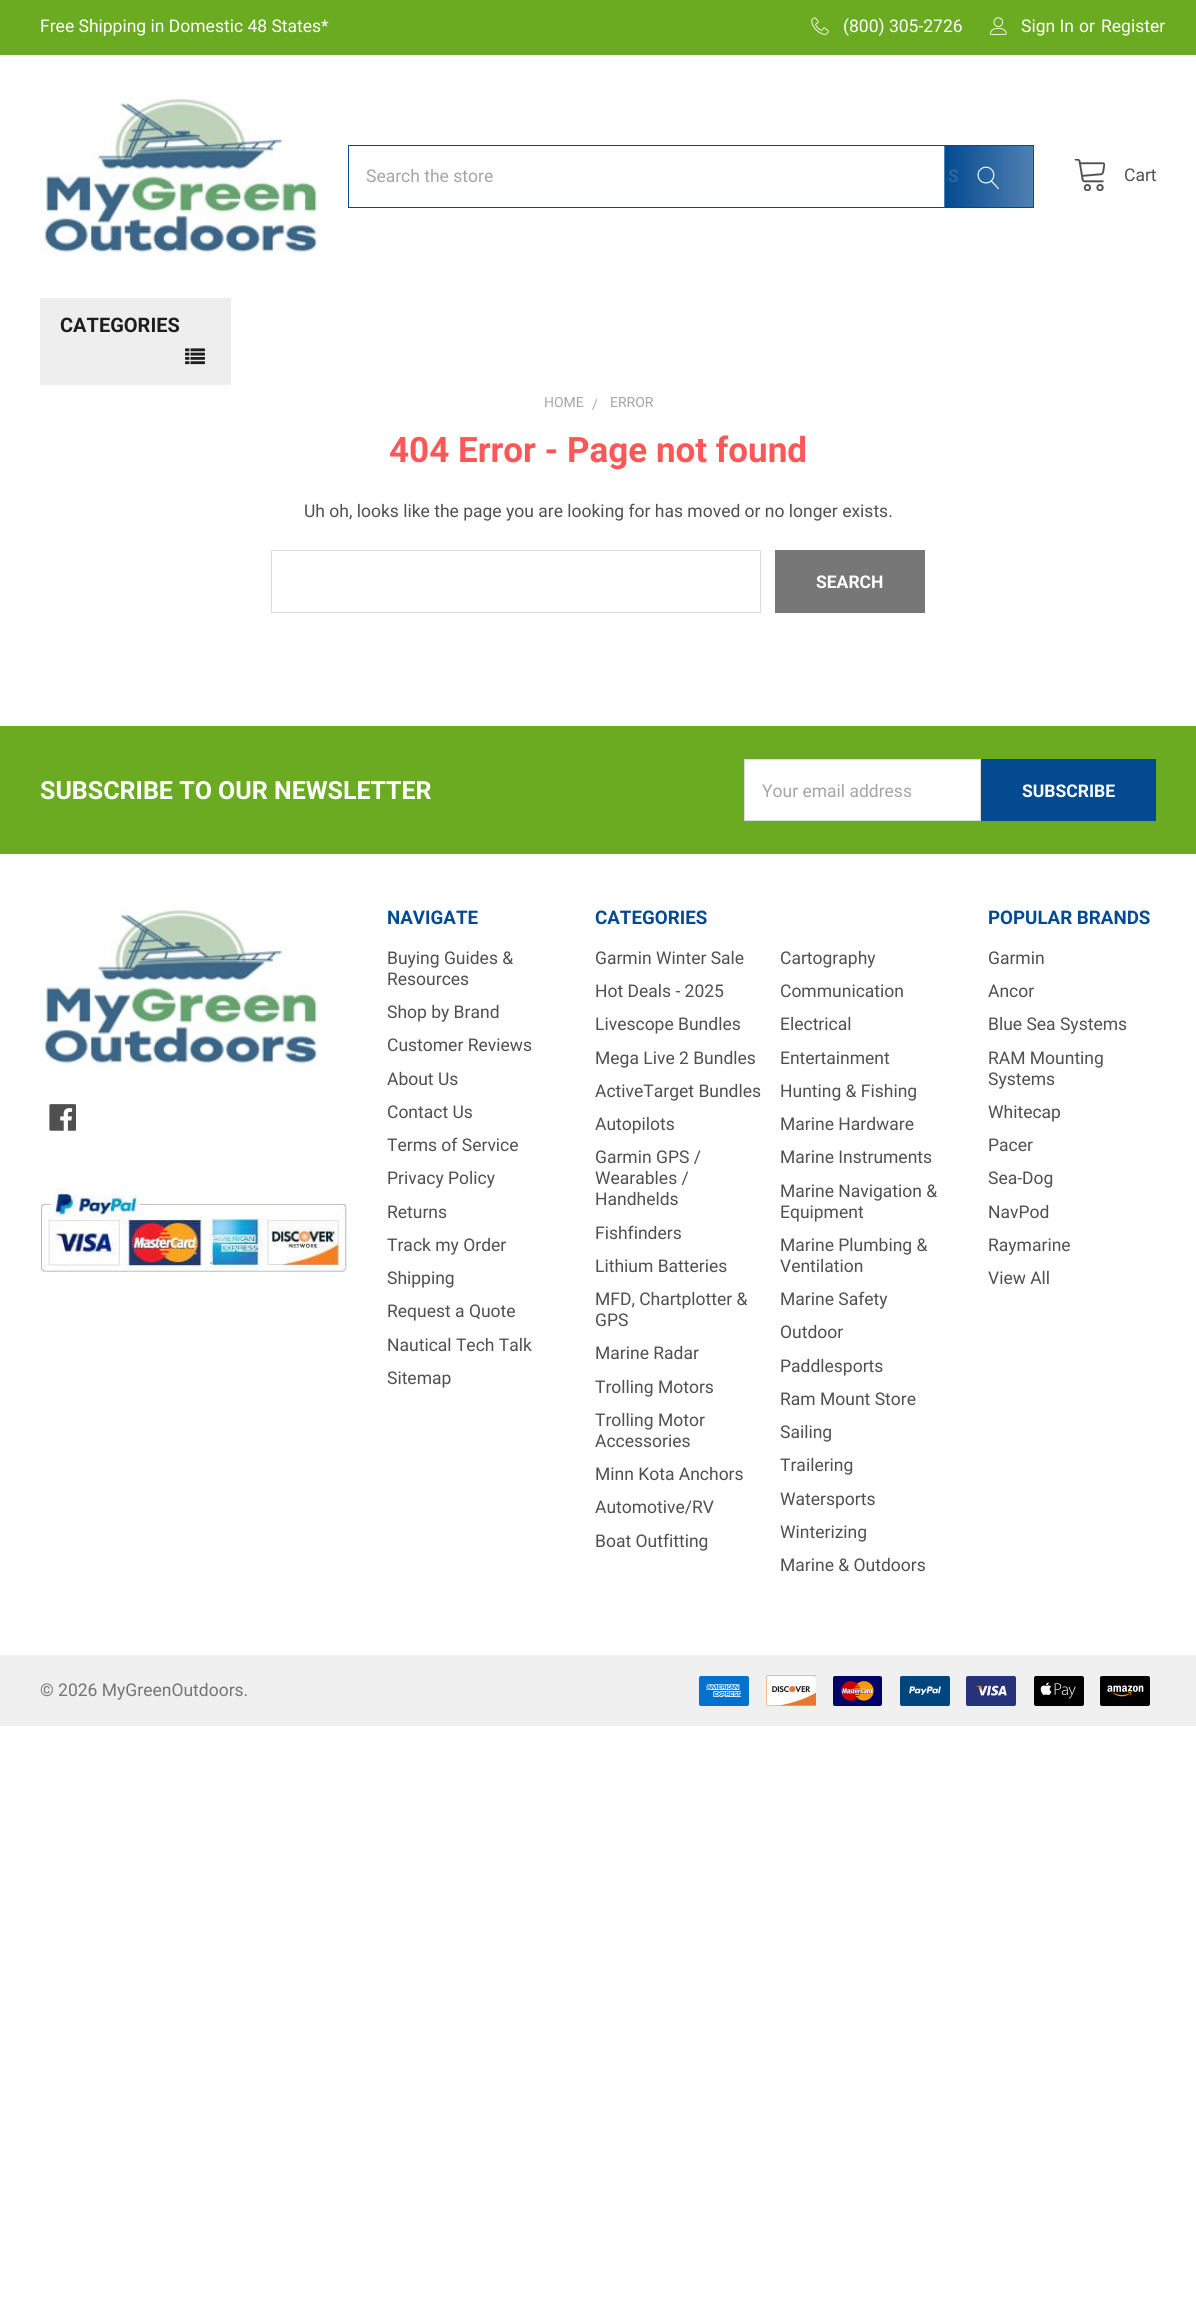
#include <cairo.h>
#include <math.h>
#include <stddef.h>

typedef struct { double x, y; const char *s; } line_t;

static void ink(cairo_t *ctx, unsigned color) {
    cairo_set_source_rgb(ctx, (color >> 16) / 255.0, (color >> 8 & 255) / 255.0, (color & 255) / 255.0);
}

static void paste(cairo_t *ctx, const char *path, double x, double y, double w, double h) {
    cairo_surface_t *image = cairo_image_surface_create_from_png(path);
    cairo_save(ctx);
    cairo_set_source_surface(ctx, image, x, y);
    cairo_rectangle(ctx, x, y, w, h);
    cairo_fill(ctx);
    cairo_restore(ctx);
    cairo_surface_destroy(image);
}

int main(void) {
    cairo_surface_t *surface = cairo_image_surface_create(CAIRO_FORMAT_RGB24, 1196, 2309);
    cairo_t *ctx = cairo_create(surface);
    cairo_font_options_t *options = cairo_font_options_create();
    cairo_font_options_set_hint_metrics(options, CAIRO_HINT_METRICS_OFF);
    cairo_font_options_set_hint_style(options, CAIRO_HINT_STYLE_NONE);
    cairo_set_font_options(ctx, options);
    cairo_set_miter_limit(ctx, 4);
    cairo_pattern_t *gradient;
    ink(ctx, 0xFFFFFF);
    cairo_paint(ctx);
    ink(ctx, 0x6BAB21);
    cairo_rectangle(ctx, 0, 0, 1196, 55);
    cairo_fill(ctx);
    cairo_select_font_face(ctx, "Roboto", CAIRO_FONT_SLANT_NORMAL, CAIRO_FONT_WEIGHT_NORMAL);
    cairo_set_font_size(ctx, 17.5);
    ink(ctx, 0xFFFFFF);
    cairo_move_to(ctx, 40, 32);
    cairo_show_text(ctx, "Free Shipping in Domestic 48 States*");
    paste(ctx, "media/1.png", 811, 17, 18, 18);
    cairo_move_to(ctx, 843, 32);
    cairo_show_text(ctx, "(800) 305-2726");
    paste(ctx, "media/2.png", 990, 17, 17, 18);
    {
        static const line_t items[] = {
            {1021, 32, "Sign In"},
            {1079, 32, "or"},
            {1101, 32, "Register"},
        };
        for (size_t i = 0; i < sizeof items / sizeof *items; i++) {
            cairo_move_to(ctx, items[i].x, items[i].y);
            cairo_show_text(ctx, items[i].s);
        }
    }
    paste(ctx, "media/3.png", 40, 95, 280, 161);
    cairo_rectangle(ctx, 348.5, 145.5, 685, 62);
    ink(ctx, 0x044A90);
    cairo_set_line_width(ctx, 1);
    cairo_stroke(ctx);
    ink(ctx, 0xA5A5A5);
    cairo_move_to(ctx, 366, 182);
    cairo_show_text(ctx, "Search the store");
    gradient = cairo_pattern_create_linear(945, 176, 1033, 176);
    cairo_pattern_add_color_stop_rgba(gradient, 0, 0.016, 0.29, 0.565, 1);
    cairo_pattern_add_color_stop_rgba(gradient, 1, 0.016, 0.29, 0.565, 0.7);
    cairo_set_source(ctx, gradient);
    cairo_pattern_destroy(gradient);
    cairo_rectangle(ctx, 945, 146, 88, 61);
    cairo_fill(ctx);
    cairo_select_font_face(ctx, "Roboto", CAIRO_FONT_SLANT_NORMAL, CAIRO_FONT_WEIGHT_BOLD);
    ink(ctx, 0x2B66A1);
    cairo_move_to(ctx, 948, 182);
    cairo_show_text(ctx, "S");
    gradient = cairo_pattern_create_linear(858, 176, 945, 176);
    cairo_pattern_add_color_stop_rgba(gradient, 0, 0.016, 0.29, 0.565, 1);
    cairo_pattern_add_color_stop_rgba(gradient, 1, 0.016, 0.29, 0.565, 0.7);
    cairo_set_source(ctx, gradient);
    cairo_pattern_destroy(gradient);
    cairo_rectangle(ctx, 944, 145, 1, 63);
    cairo_fill(ctx);
    paste(ctx, "media/4.png", 977, 166, 22, 24);
    paste(ctx, "media/5.png", 1074, 159, 31, 32);
    cairo_select_font_face(ctx, "Roboto", CAIRO_FONT_SLANT_NORMAL, CAIRO_FONT_WEIGHT_NORMAL);
    ink(ctx, 0x505050);
    cairo_move_to(ctx, 1124, 181);
    cairo_show_text(ctx, "Cart");
    ink(ctx, 0xEEEEEE);
    cairo_rectangle(ctx, 40, 298, 191, 87);
    cairo_fill(ctx);
    cairo_select_font_face(ctx, "Roboto", CAIRO_FONT_SLANT_NORMAL, CAIRO_FONT_WEIGHT_BOLD);
    cairo_set_font_size(ctx, 20);
    ink(ctx, 0x1E1E1E);
    cairo_move_to(ctx, 60, 332);
    cairo_show_text(ctx, "CATEGORIES");
    paste(ctx, "media/6.png", 185, 348, 20, 17);
    cairo_select_font_face(ctx, "Roboto", CAIRO_FONT_SLANT_NORMAL, CAIRO_FONT_WEIGHT_NORMAL);
    cairo_set_font_size(ctx, 14);
    ink(ctx, 0xA5A5A5);
    {
        static const line_t items[] = {
            {544, 407, "HOME"},
            {592, 409, "/"},
            {610, 407, "ERROR"},
        };
        for (size_t i = 0; i < sizeof items / sizeof *items; i++) {
            cairo_move_to(ctx, items[i].x, items[i].y);
            cairo_show_text(ctx, items[i].s);
        }
    }
    cairo_select_font_face(ctx, "Roboto", CAIRO_FONT_SLANT_NORMAL, CAIRO_FONT_WEIGHT_BOLD);
    cairo_set_font_size(ctx, 35);
    ink(ctx, 0xFD5757);
    cairo_move_to(ctx, 389, 462);
    cairo_show_text(ctx, "404 Error - Page not found");
    cairo_select_font_face(ctx, "Roboto", CAIRO_FONT_SLANT_NORMAL, CAIRO_FONT_WEIGHT_NORMAL);
    cairo_set_font_size(ctx, 17.5);
    ink(ctx, 0x505050);
    cairo_move_to(ctx, 304, 517);
    cairo_show_text(ctx, "Uh oh, looks like the page you are looking for has moved or no longer exists.");
    cairo_rectangle(ctx, 271.5, 550.5, 489, 62);
    ink(ctx, 0xDCDCDC);
    cairo_stroke(ctx);
    ink(ctx, 0x777777);
    cairo_rectangle(ctx, 775, 550, 150, 63);
    cairo_fill(ctx);
    cairo_select_font_face(ctx, "Roboto", CAIRO_FONT_SLANT_NORMAL, CAIRO_FONT_WEIGHT_BOLD);
    ink(ctx, 0xFFFFFF);
    cairo_move_to(ctx, 816, 588);
    cairo_show_text(ctx, "SEARCH");
    ink(ctx, 0x6BAB21);
    cairo_rectangle(ctx, 0, 726, 1196, 128);
    cairo_fill(ctx);
    cairo_set_font_size(ctx, 25);
    ink(ctx, 0xFFFFFF);
    cairo_move_to(ctx, 40, 799);
    cairo_show_text(ctx, "SUBSCRIBE TO OUR NEWSLETTER");
    cairo_rectangle(ctx, 744.5, 759.5, 236, 61);
    cairo_fill_preserve(ctx);
    ink(ctx, 0xDCDCDC);
    cairo_stroke(ctx);
    cairo_select_font_face(ctx, "Roboto", CAIRO_FONT_SLANT_NORMAL, CAIRO_FONT_WEIGHT_NORMAL);
    cairo_set_font_size(ctx, 17.5);
    ink(ctx, 0xA5A5A5);
    cairo_move_to(ctx, 762, 797);
    cairo_show_text(ctx, "Your email address");
    ink(ctx, 0x044A90);
    cairo_rectangle(ctx, 981, 759, 175, 62);
    cairo_fill(ctx);
    cairo_select_font_face(ctx, "Roboto", CAIRO_FONT_SLANT_NORMAL, CAIRO_FONT_WEIGHT_BOLD);
    ink(ctx, 0xFFFFFF);
    cairo_move_to(ctx, 1022, 797);
    cairo_show_text(ctx, "SUBSCRIBE");
    paste(ctx, "media/7.png", 40, 906, 280, 161);
    paste(ctx, "media/8.png", 49, 1104, 27, 27);
    paste(ctx, "media/9.png", 40, 1187, 307, 85);
    cairo_set_font_size(ctx, 18.75);
    ink(ctx, 0x044A90);
    cairo_move_to(ctx, 387, 924);
    cairo_show_text(ctx, "NAVIGATE");
    cairo_select_font_face(ctx, "Roboto", CAIRO_FONT_SLANT_NORMAL, CAIRO_FONT_WEIGHT_NORMAL);
    cairo_set_font_size(ctx, 17.5);
    ink(ctx, 0x505050);
    {
        static const line_t items[] = {
            {387, 964, "Buying Guides &"},
            {387, 985, "Resources"},
            {387, 1018, "Shop by Brand"},
            {387, 1051, "Customer Reviews"},
            {387, 1085, "About Us"},
            {387, 1118, "Contact Us"},
            {387, 1151, "Terms of Service"},
            {387, 1184, "Privacy Policy"},
            {387, 1218, "Returns"},
            {387, 1251, "Track my Order"},
            {387, 1284, "Shipping"},
            {387, 1317, "Request a Quote"},
            {387, 1351, "Nautical Tech Talk"},
            {387, 1384, "Sitemap"},
        };
        for (size_t i = 0; i < sizeof items / sizeof *items; i++) {
            cairo_move_to(ctx, items[i].x, items[i].y);
            cairo_show_text(ctx, items[i].s);
        }
    }
    cairo_select_font_face(ctx, "Roboto", CAIRO_FONT_SLANT_NORMAL, CAIRO_FONT_WEIGHT_BOLD);
    cairo_set_font_size(ctx, 18.75);
    ink(ctx, 0x044A90);
    cairo_move_to(ctx, 595, 924);
    cairo_show_text(ctx, "CATEGORIES");
    cairo_select_font_face(ctx, "Roboto", CAIRO_FONT_SLANT_NORMAL, CAIRO_FONT_WEIGHT_NORMAL);
    cairo_set_font_size(ctx, 17.5);
    ink(ctx, 0x505050);
    {
        static const line_t items[] = {
            {595, 964, "Garmin Winter Sale"},
            {780, 964, "Cartography"},
            {595, 997, "Hot Deals - 2025"},
            {780, 997, "Communication"},
            {595, 1030, "Livescope Bundles"},
            {780, 1030, "Electrical"},
            {595, 1064, "Mega Live 2 Bundles"},
            {780, 1064, "Entertainment"},
            {595, 1097, "ActiveTarget Bundles"},
            {780, 1097, "Hunting & Fishing"},
            {595, 1130, "Autopilots"},
            {780, 1130, "Marine Hardware"},
            {595, 1163, "Garmin GPS /"},
            {595, 1184, "Wearables /"},
            {595, 1205, "Handhelds"},
            {780, 1163, "Marine Instruments"},
            {780, 1197, "Marine Navigation &"},
            {780, 1218, "Equipment"},
            {595, 1239, "Fishfinders"},
            {595, 1272, "Lithium Batteries"},
            {780, 1251, "Marine Plumbing &"},
            {780, 1272, "Ventilation"},
            {595, 1305, "MFD, Chartplotter &"},
            {595, 1326, "GPS"},
            {780, 1305, "Marine Safety"},
            {780, 1338, "Outdoor"},
            {595, 1359, "Marine Radar"},
            {780, 1372, "Paddlesports"},
            {595, 1393, "Trolling Motors"},
            {780, 1405, "Ram Mount Store"},
            {595, 1426, "Trolling Motor"},
            {595, 1447, "Accessories"},
            {780, 1438, "Sailing"},
            {595, 1480, "Minn Kota Anchors"},
            {780, 1471, "Trailering"},
            {595, 1513, "Automotive/RV"},
            {780, 1505, "Watersports"},
            {595, 1547, "Boat Outfitting"},
            {780, 1538, "Winterizing"},
            {780, 1571, "Marine & Outdoors"},
        };
        for (size_t i = 0; i < sizeof items / sizeof *items; i++) {
            cairo_move_to(ctx, items[i].x, items[i].y);
            cairo_show_text(ctx, items[i].s);
        }
    }
    cairo_select_font_face(ctx, "Roboto", CAIRO_FONT_SLANT_NORMAL, CAIRO_FONT_WEIGHT_BOLD);
    cairo_set_font_size(ctx, 18.75);
    ink(ctx, 0x044A90);
    cairo_move_to(ctx, 988, 924);
    cairo_show_text(ctx, "POPULAR BRANDS");
    cairo_select_font_face(ctx, "Roboto", CAIRO_FONT_SLANT_NORMAL, CAIRO_FONT_WEIGHT_NORMAL);
    cairo_set_font_size(ctx, 17.5);
    ink(ctx, 0x505050);
    {
        static const line_t items[] = {
            {988, 964, "Garmin"},
            {988, 997, "Ancor"},
            {988, 1030, "Blue Sea Systems"},
            {988, 1064, "RAM Mounting"},
            {988, 1085, "Systems"},
            {988, 1118, "Whitecap"},
            {988, 1151, "Pacer"},
            {988, 1184, "Sea-Dog"},
            {988, 1218, "NavPod"},
            {988, 1251, "Raymarine"},
            {988, 1284, "View All"},
        };
        for (size_t i = 0; i < sizeof items / sizeof *items; i++) {
            cairo_move_to(ctx, items[i].x, items[i].y);
            cairo_show_text(ctx, items[i].s);
        }
    }
    ink(ctx, 0xF0F0F0);
    cairo_rectangle(ctx, 0, 1655, 1196, 71);
    cairo_fill(ctx);
    ink(ctx, 0x757575);
    cairo_move_to(ctx, 40, 1696);
    cairo_show_text(ctx, "© 2026 MyGreenOutdoors.");
    paste(ctx, "media/10.png", 699, 1676, 50, 30);
    paste(ctx, "media/11.png", 766, 1675, 50, 31);
    paste(ctx, "media/12.png", 833, 1676, 49, 30);
    paste(ctx, "media/13.png", 900, 1676, 50, 30);
    paste(ctx, "media/14.png", 966, 1676, 50, 30);
    paste(ctx, "media/15.png", 1034, 1676, 50, 30);
    paste(ctx, "media/16.png", 1100, 1676, 50, 30);
    cairo_surface_write_to_png(surface, "image.png");
    cairo_font_options_destroy(options);
    cairo_destroy(ctx);
    cairo_surface_destroy(surface);
    return 0;
}
